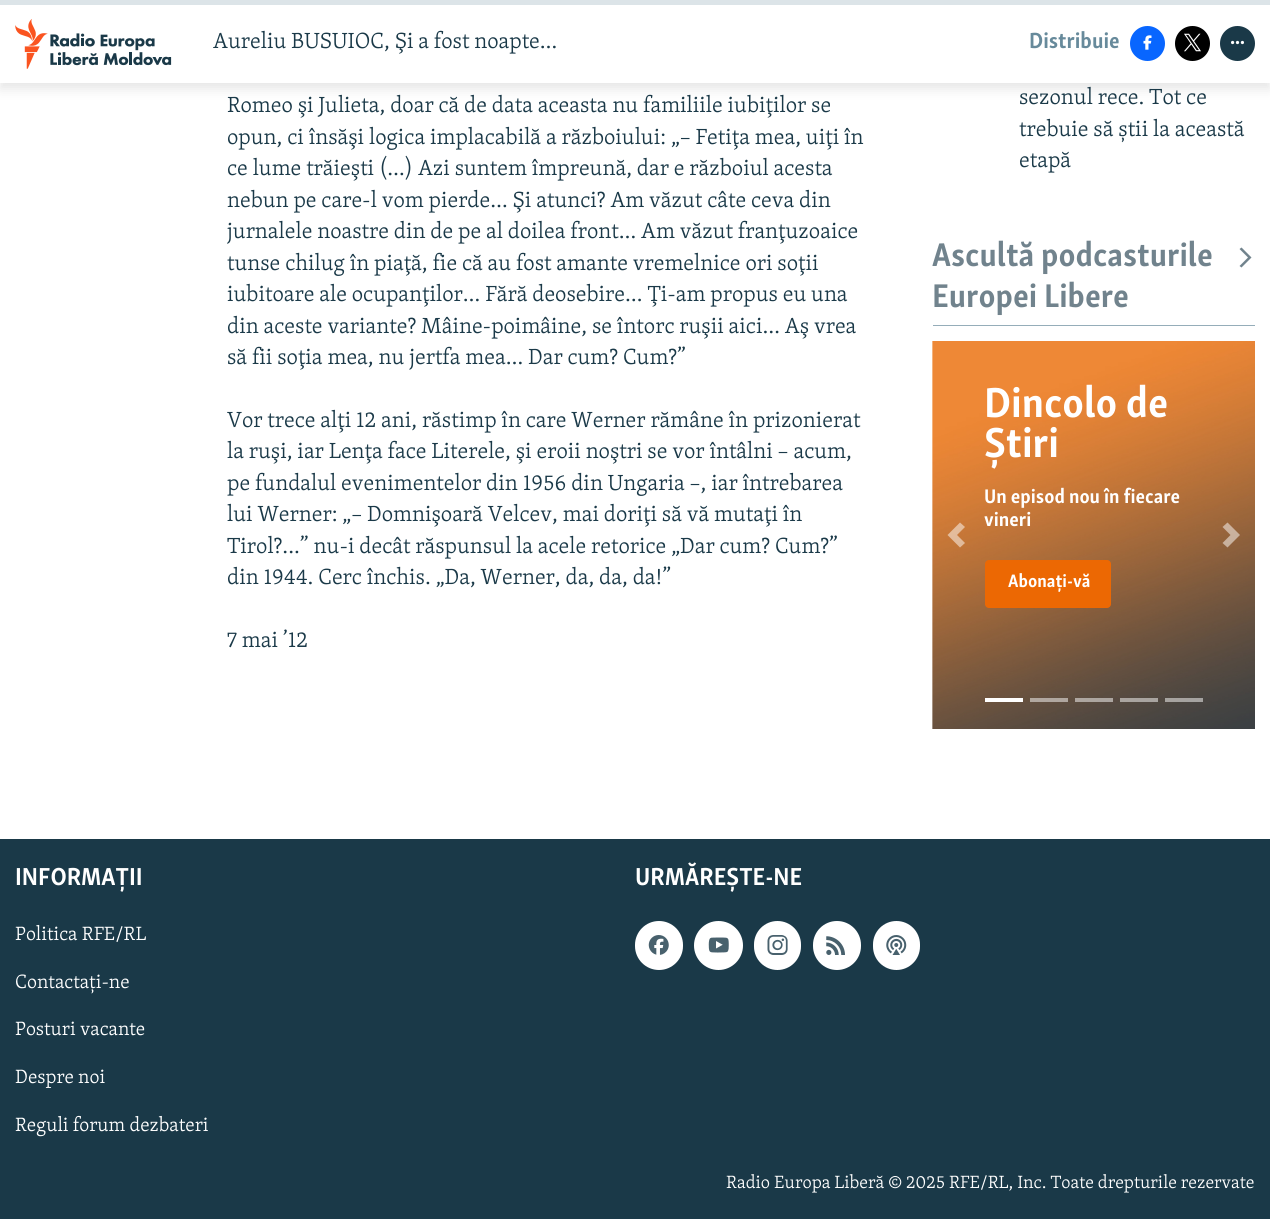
#include <cairo.h>
#include <math.h>
#include <stddef.h>

typedef struct { double x, y; const char *s; } line_t;

static void ink(cairo_t *ctx, unsigned color) {
    cairo_set_source_rgb(ctx, (color >> 16) / 255.0, (color >> 8 & 255) / 255.0, (color & 255) / 255.0);
}

static void round_path(cairo_t *ctx, double x, double y, double w, double h, double r) {
    cairo_new_sub_path(ctx);
    cairo_arc(ctx, x + w - r, y + h - r, r, 0, M_PI / 2);
    cairo_arc(ctx, x + r, y + h - r, r, M_PI / 2, M_PI);
    cairo_arc(ctx, x + r, y + r, r, M_PI, 1.5 * M_PI);
    cairo_arc(ctx, x + w - r, y + r, r, 1.5 * M_PI, 2 * M_PI);
    cairo_close_path(ctx);
}

static void blur_box(cairo_t *ctx, double x, double y, double w, double h, double r, double blur, double alpha) {
    cairo_push_group_with_content(ctx, CAIRO_CONTENT_ALPHA);
    cairo_set_operator(ctx, CAIRO_OPERATOR_SOURCE);
    for (int i = 15; i >= -15 && fmin(w, h) + blur * i / 3 > 0; i -= 2) {
        double e = blur * i / 6;
        cairo_set_source_rgba(ctx, 0, 0, 0, alpha * erfc((i - 1) / 8.5) / 2);
        round_path(ctx, x - e, y - e, w + 2 * e, h + 2 * e, fmax(0, fmin(r + e + blur * .6, fmin(w, h) / 2 + e)));
        cairo_fill(ctx);
    }
    cairo_pattern_t *soft = cairo_pop_group(ctx);
    cairo_mask(ctx, soft);
    cairo_pattern_destroy(soft);
}

static void paste(cairo_t *ctx, const char *path, double x, double y, double w, double h) {
    cairo_surface_t *image = cairo_image_surface_create_from_png(path);
    cairo_save(ctx);
    cairo_set_source_surface(ctx, image, x, y);
    cairo_rectangle(ctx, x, y, w, h);
    cairo_fill(ctx);
    cairo_restore(ctx);
    cairo_surface_destroy(image);
}

int main(void) {
    cairo_surface_t *surface = cairo_image_surface_create(CAIRO_FORMAT_RGB24, 1270, 1219);
    cairo_t *ctx = cairo_create(surface);
    cairo_font_options_t *options = cairo_font_options_create();
    cairo_font_options_set_hint_metrics(options, CAIRO_HINT_METRICS_OFF);
    cairo_font_options_set_hint_style(options, CAIRO_HINT_STYLE_NONE);
    cairo_set_font_options(ctx, options);
    cairo_set_miter_limit(ctx, 4);
    ink(ctx, 0xFFFFFF);
    cairo_paint(ctx);
    ink(ctx, 0x000000);
    blur_box(ctx, 0, 6, 1270, 83, 0, 6, 0.1);
    ink(ctx, 0xFFFFFF);
    cairo_rectangle(ctx, 0, 5, 1270, 78);
    cairo_fill(ctx);
    ink(ctx, 0xDCE4E8);
    cairo_rectangle(ctx, 0, 0, 1270, 5);
    cairo_fill(ctx);
    paste(ctx, "media/1.png", 15, 19, 157, 50);
    cairo_select_font_face(ctx, "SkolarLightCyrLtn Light", CAIRO_FONT_SLANT_NORMAL, CAIRO_FONT_WEIGHT_NORMAL);
    cairo_set_font_size(ctx, 22.5);
    ink(ctx, 0x1A3948);
    cairo_move_to(ctx, 213, 48);
    cairo_show_text(ctx, "Aureliu BUSUIOC, Şi a fost noapte…");
    cairo_select_font_face(ctx, "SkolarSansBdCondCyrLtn", CAIRO_FONT_SLANT_NORMAL, CAIRO_FONT_WEIGHT_BOLD);
    ink(ctx, 0x678A9B);
    cairo_move_to(ctx, 1029, 48);
    cairo_show_text(ctx, "Distribuie");
    ink(ctx, 0x0866FF);
    cairo_new_path(ctx);
    cairo_arc(ctx, 1147.5, 43.5, 17.5, 0, 2 * M_PI);
    cairo_fill(ctx);
    paste(ctx, "media/2.png", 1143, 35, 9, 15);
    ink(ctx, 0x000000);
    cairo_arc(ctx, 1192.5, 43.5, 17.5, 0, 2 * M_PI);
    cairo_fill(ctx);
    paste(ctx, "media/3.png", 1184, 33, 17, 19);
    ink(ctx, 0x1A3948);
    cairo_arc(ctx, 1237.5, 43.5, 17.5, 0, 2 * M_PI);
    cairo_fill(ctx);
    paste(ctx, "media/4.png", 1231, 40, 13, 5);
    cairo_select_font_face(ctx, "SkolarLightCyrLtn Light", CAIRO_FONT_SLANT_NORMAL, CAIRO_FONT_WEIGHT_NORMAL);
    {
        static const line_t items[] = {
            {227, 112, "Romeo şi Julieta, doar că de data aceasta nu familiile iubiţilor se"},
            {227, 144, "opun, ci însăşi logica implacabilă a războiului: „– Fetiţa mea, uiţi în"},
            {227, 175, "ce lume trăieşti (…) Azi suntem împreună, dar e războiul acesta"},
            {227, 207, "nebun pe care-l vom pierde… Şi atunci? Am văzut câte ceva din"},
            {227, 238, "jurnalele noastre din de pe al doilea front… Am văzut franţuzoaice"},
            {227, 270, "tunse chilug în piaţă, fie că au fost amante vremelnice ori soţii"},
            {227, 301, "iubitoare ale ocupanţilor… Fără deosebire… Ţi-am propus eu una"},
            {227, 333, "din aceste variante? Mâine-poimâine, se întorc ruşii aici… Aş vrea"},
            {227, 364, "să fii soţia mea, nu jertfa mea… Dar cum? Cum?”"},
            {227, 427, "Vor trece alţi 12 ani, răstimp în care Werner rămâne în prizonierat"},
            {227, 458, "la ruşi, iar Lenţa face Literele, şi eroii noştri se vor întâlni – acum,"},
            {227, 490, "pe fundalul evenimentelor din 1956 din Ungaria –, iar întrebarea"},
            {227, 521, "lui Werner: „– Domnişoară Velcev, mai doriţi să vă mutaţi în"},
            {227, 553, "Tirol?...” nu-i decât răspunsul la acele retorice „Dar cum? Cum?”"},
            {227, 584, "din 1944. Cerc închis. „Da, Werner, da, da, da!”"},
            {227, 647, "7 mai ’12"},
            {1019, 104, "sezonul rece. Tot ce"},
            {1019, 136, "trebuie să știi la această"},
            {1019, 167, "etapă"},
        };
        for (size_t i = 0; i < sizeof items / sizeof *items; i++) {
            cairo_move_to(ctx, items[i].x, items[i].y);
            cairo_show_text(ctx, items[i].s);
        }
    }
    ink(ctx, 0x95ADB9);
    cairo_rectangle(ctx, 933, 325, 322, 1);
    cairo_fill(ctx);
    cairo_select_font_face(ctx, "SkolarSansBdCondCyrLtn", CAIRO_FONT_SLANT_NORMAL, CAIRO_FONT_WEIGHT_BOLD);
    cairo_set_font_size(ctx, 33.75);
    ink(ctx, 0x71838D);
    cairo_move_to(ctx, 932, 266);
    cairo_show_text(ctx, "Ascultă podcasturile");
    cairo_new_path(ctx);
    cairo_move_to(ctx, 1241.5, 267.5);
    cairo_line_to(ctx, 1251.5, 257.5);
    cairo_line_to(ctx, 1241.5, 247.5);
    cairo_line_to(ctx, 1239.5, 249);
    cairo_line_to(ctx, 1248, 257.5);
    cairo_line_to(ctx, 1239.5, 266);
    cairo_close_path(ctx);
    cairo_fill(ctx);
    cairo_move_to(ctx, 932, 307);
    cairo_show_text(ctx, "Europei Libere");
    paste(ctx, "media/5.png", 932, 341, 323, 388);
    cairo_set_source_rgba(ctx, 1, 1, 1, 0.5);
    cairo_new_path(ctx);
    cairo_move_to(ctx, 960, 522.5);
    cairo_line_to(ctx, 947.5, 535);
    cairo_line_to(ctx, 960, 547.5);
    cairo_line_to(ctx, 965, 543);
    cairo_line_to(ctx, 957, 535);
    cairo_line_to(ctx, 965, 527);
    cairo_close_path(ctx);
    cairo_fill(ctx);
    cairo_set_font_size(ctx, 43);
    ink(ctx, 0xFFFFFF);
    cairo_move_to(ctx, 984, 417);
    cairo_show_text(ctx, "Dincolo de");
    cairo_move_to(ctx, 984, 457);
    cairo_show_text(ctx, "Știri");
    cairo_set_font_size(ctx, 20.25);
    cairo_move_to(ctx, 984, 503);
    cairo_show_text(ctx, "Un episod nou în fiecare");
    cairo_move_to(ctx, 984, 526);
    cairo_show_text(ctx, "vineri");
    ink(ctx, 0xEC6803);
    round_path(ctx, 985, 560, 126, 48, 4);
    cairo_fill(ctx);
    cairo_set_font_size(ctx, 18.5);
    ink(ctx, 0xFFFFFF);
    cairo_move_to(ctx, 1008, 587);
    cairo_show_text(ctx, "Abonați-vă");
    cairo_set_source_rgba(ctx, 1, 1, 1, 0.5);
    cairo_new_path(ctx);
    cairo_move_to(ctx, 1227.5, 522.5);
    cairo_line_to(ctx, 1222.5, 527);
    cairo_line_to(ctx, 1230.5, 535);
    cairo_line_to(ctx, 1222.5, 543);
    cairo_line_to(ctx, 1227.5, 547.5);
    cairo_line_to(ctx, 1240, 535);
    cairo_close_path(ctx);
    cairo_fill(ctx);
    ink(ctx, 0xFFFFFF);
    cairo_rectangle(ctx, 985, 698, 38, 4);
    cairo_fill(ctx);
    cairo_set_source_rgba(ctx, 1, 1, 1, 0.5);
    cairo_rectangle(ctx, 1030, 698, 38, 4);
    cairo_fill(ctx);
    cairo_rectangle(ctx, 1075, 698, 38, 4);
    cairo_fill(ctx);
    cairo_rectangle(ctx, 1120, 698, 38, 4);
    cairo_fill(ctx);
    cairo_rectangle(ctx, 1165, 698, 38, 4);
    cairo_fill(ctx);
    ink(ctx, 0x1A3948);
    cairo_rectangle(ctx, 0, 839, 1270, 380);
    cairo_fill(ctx);
    cairo_set_font_size(ctx, 25.25);
    ink(ctx, 0xFFFFFF);
    cairo_move_to(ctx, 15, 885);
    cairo_show_text(ctx, "INFORMAȚII");
    cairo_select_font_face(ctx, "SkolarLightCyrLtn Light", CAIRO_FONT_SLANT_NORMAL, CAIRO_FONT_WEIGHT_NORMAL);
    cairo_set_font_size(ctx, 19.75);
    {
        static const line_t items[] = {
            {15, 940, "Politica RFE/RL"},
            {15, 988, "Contactați-ne"},
            {15, 1035, "Posturi vacante"},
            {15, 1083, "Despre noi"},
            {15, 1131, "Reguli forum dezbateri"},
        };
        for (size_t i = 0; i < sizeof items / sizeof *items; i++) {
            cairo_move_to(ctx, items[i].x, items[i].y);
            cairo_show_text(ctx, items[i].s);
        }
    }
    cairo_select_font_face(ctx, "SkolarSansBdCondCyrLtn", CAIRO_FONT_SLANT_NORMAL, CAIRO_FONT_WEIGHT_BOLD);
    cairo_set_font_size(ctx, 25.25);
    cairo_move_to(ctx, 635, 885);
    cairo_show_text(ctx, "URMĂREȘTE-NE");
    round_path(ctx, 635, 921, 48, 49, 24);
    cairo_fill(ctx);
    paste(ctx, "media/6.png", 648, 935, 21, 20);
    cairo_arc(ctx, 718.5, 945.5, 24.5, 0, 2 * M_PI);
    cairo_fill(ctx);
    paste(ctx, "media/7.png", 708, 937, 21, 16);
    round_path(ctx, 754, 921, 47, 49, 23.5);
    cairo_fill(ctx);
    paste(ctx, "media/8.png", 767, 935, 21, 20);
    round_path(ctx, 813, 921, 48, 49, 24);
    cairo_fill(ctx);
    paste(ctx, "media/9.png", 826, 936, 19, 19);
    round_path(ctx, 873, 921, 47, 49, 23.5);
    cairo_fill(ctx);
    paste(ctx, "media/10.png", 886, 935, 21, 20);
    cairo_select_font_face(ctx, "SkolarLightCyrLtn Light", CAIRO_FONT_SLANT_NORMAL, CAIRO_FONT_WEIGHT_NORMAL);
    cairo_set_font_size(ctx, 18.25);
    cairo_move_to(ctx, 726, 1188);
    cairo_show_text(ctx, "Radio Europa Liberă © 2025 RFE/RL, Inc. Toate drepturile rezervate");
    cairo_surface_write_to_png(surface, "image.png");
    cairo_font_options_destroy(options);
    cairo_destroy(ctx);
    cairo_surface_destroy(surface);
    return 0;
}
